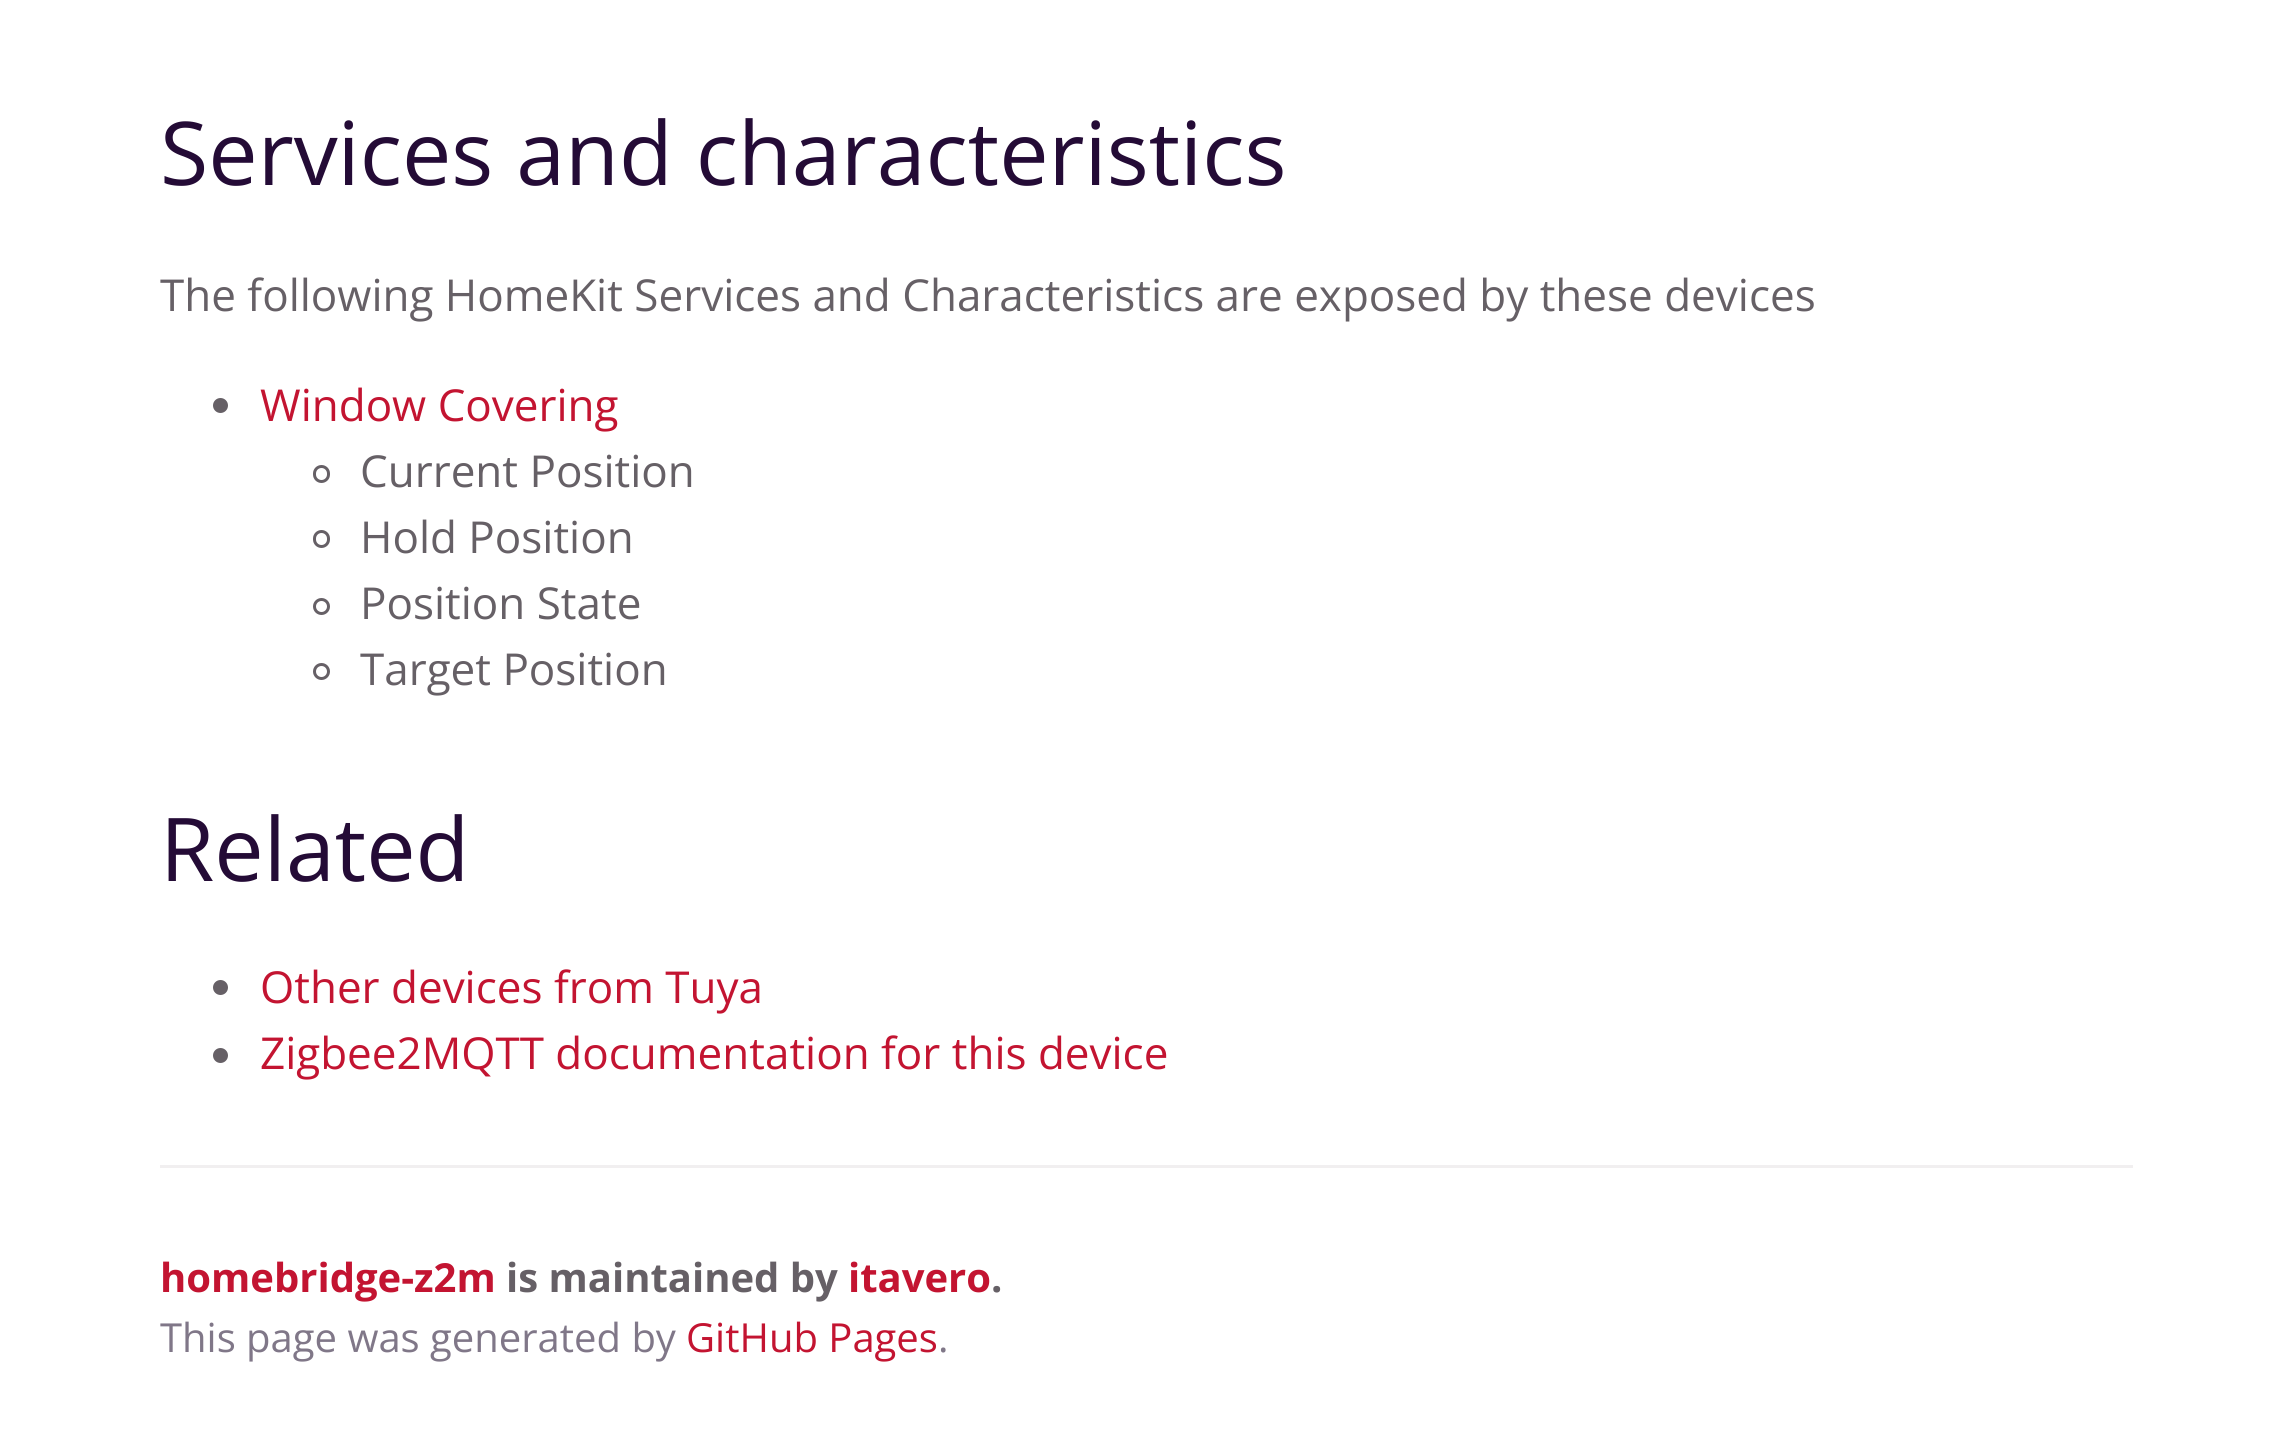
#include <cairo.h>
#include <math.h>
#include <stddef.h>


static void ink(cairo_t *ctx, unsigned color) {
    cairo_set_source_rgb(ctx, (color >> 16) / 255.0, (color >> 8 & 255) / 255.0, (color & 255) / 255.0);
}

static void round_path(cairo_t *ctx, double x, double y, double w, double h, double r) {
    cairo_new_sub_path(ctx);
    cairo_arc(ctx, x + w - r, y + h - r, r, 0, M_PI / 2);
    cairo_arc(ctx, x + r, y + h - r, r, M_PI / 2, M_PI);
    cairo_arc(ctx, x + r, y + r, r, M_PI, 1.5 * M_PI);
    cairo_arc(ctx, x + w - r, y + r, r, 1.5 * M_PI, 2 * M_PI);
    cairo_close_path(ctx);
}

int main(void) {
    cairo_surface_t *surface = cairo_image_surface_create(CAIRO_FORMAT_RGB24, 2291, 1445);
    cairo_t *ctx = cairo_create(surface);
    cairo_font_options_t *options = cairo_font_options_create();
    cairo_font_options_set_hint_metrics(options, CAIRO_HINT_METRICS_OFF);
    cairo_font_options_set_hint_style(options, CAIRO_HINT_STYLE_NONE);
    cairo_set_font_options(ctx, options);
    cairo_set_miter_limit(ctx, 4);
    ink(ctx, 0xFFFFFF);
    cairo_paint(ctx);
    cairo_select_font_face(ctx, "Open Sans", CAIRO_FONT_SLANT_NORMAL, CAIRO_FONT_WEIGHT_NORMAL);
    cairo_set_font_size(ctx, 88);
    ink(ctx, 0x240B36);
    cairo_move_to(ctx, 160, 185);
    cairo_show_text(ctx, "Services and characteristics");
    cairo_set_font_size(ctx, 44);
    ink(ctx, 0x666066);
    cairo_move_to(ctx, 160, 311);
    cairo_show_text(ctx, "The following HomeKit Services and Characteristics are exposed by these devices");
    cairo_new_path(ctx);
    cairo_arc(ctx, 220.5, 405.5, 7.5, 0, 2 * M_PI);
    cairo_fill(ctx);
    ink(ctx, 0xC31431);
    cairo_move_to(ctx, 260, 421);
    cairo_show_text(ctx, "Window Covering");
    round_path(ctx, 314.5, 466.5, 14, 15, 7);
    ink(ctx, 0x666066);
    cairo_set_line_width(ctx, 3);
    cairo_stroke(ctx);
    cairo_move_to(ctx, 360, 487);
    cairo_show_text(ctx, "Current Position");
    round_path(ctx, 314.5, 531.5, 14, 15, 7);
    cairo_stroke(ctx);
    cairo_move_to(ctx, 360, 553);
    cairo_show_text(ctx, "Hold Position");
    cairo_new_path(ctx);
    cairo_arc(ctx, 321.5, 606.5, 7, 0, 2 * M_PI);
    cairo_stroke(ctx);
    cairo_move_to(ctx, 360, 619);
    cairo_show_text(ctx, "Position State");
    cairo_new_path(ctx);
    cairo_arc(ctx, 321.5, 671.5, 7, 0, 2 * M_PI);
    cairo_stroke(ctx);
    cairo_move_to(ctx, 360, 685);
    cairo_show_text(ctx, "Target Position");
    cairo_set_font_size(ctx, 88);
    ink(ctx, 0x240B36);
    cairo_move_to(ctx, 160, 881);
    cairo_show_text(ctx, "Related");
    ink(ctx, 0x666066);
    cairo_new_path(ctx);
    cairo_arc(ctx, 220.5, 987.5, 7.5, 0, 2 * M_PI);
    cairo_fill(ctx);
    cairo_set_font_size(ctx, 44);
    ink(ctx, 0xC31431);
    cairo_move_to(ctx, 260, 1003);
    cairo_show_text(ctx, "Other devices from Tuya");
    ink(ctx, 0x666066);
    cairo_new_path(ctx);
    cairo_arc(ctx, 220.5, 1055.5, 7.5, 0, 2 * M_PI);
    cairo_fill(ctx);
    ink(ctx, 0xC31431);
    cairo_move_to(ctx, 260, 1069);
    cairo_show_text(ctx, "Zigbee2MQTT documentation for this device");
    ink(ctx, 0xF1EFF0);
    cairo_rectangle(ctx, 160, 1165, 1973, 3);
    cairo_fill(ctx);
    cairo_select_font_face(ctx, "Open Sans", CAIRO_FONT_SLANT_NORMAL, CAIRO_FONT_WEIGHT_BOLD);
    cairo_set_font_size(ctx, 40);
    ink(ctx, 0xC31431);
    cairo_move_to(ctx, 160, 1292);
    cairo_show_text(ctx, "homebridge-z2m");
    ink(ctx, 0x666066);
    cairo_move_to(ctx, 506, 1292);
    cairo_show_text(ctx, "is maintained by");
    ink(ctx, 0xC31431);
    cairo_move_to(ctx, 848, 1292);
    cairo_show_text(ctx, "itavero");
    ink(ctx, 0x666066);
    cairo_move_to(ctx, 991, 1292);
    cairo_show_text(ctx, ".");
    cairo_select_font_face(ctx, "Open Sans", CAIRO_FONT_SLANT_NORMAL, CAIRO_FONT_WEIGHT_NORMAL);
    ink(ctx, 0x807788);
    cairo_move_to(ctx, 160, 1352);
    cairo_show_text(ctx, "This page was generated by");
    ink(ctx, 0xC31431);
    cairo_move_to(ctx, 686, 1352);
    cairo_show_text(ctx, "GitHub Pages");
    ink(ctx, 0x807788);
    cairo_move_to(ctx, 938, 1352);
    cairo_show_text(ctx, ".");
    cairo_surface_write_to_png(surface, "image.png");
    cairo_font_options_destroy(options);
    cairo_destroy(ctx);
    cairo_surface_destroy(surface);
    return 0;
}
